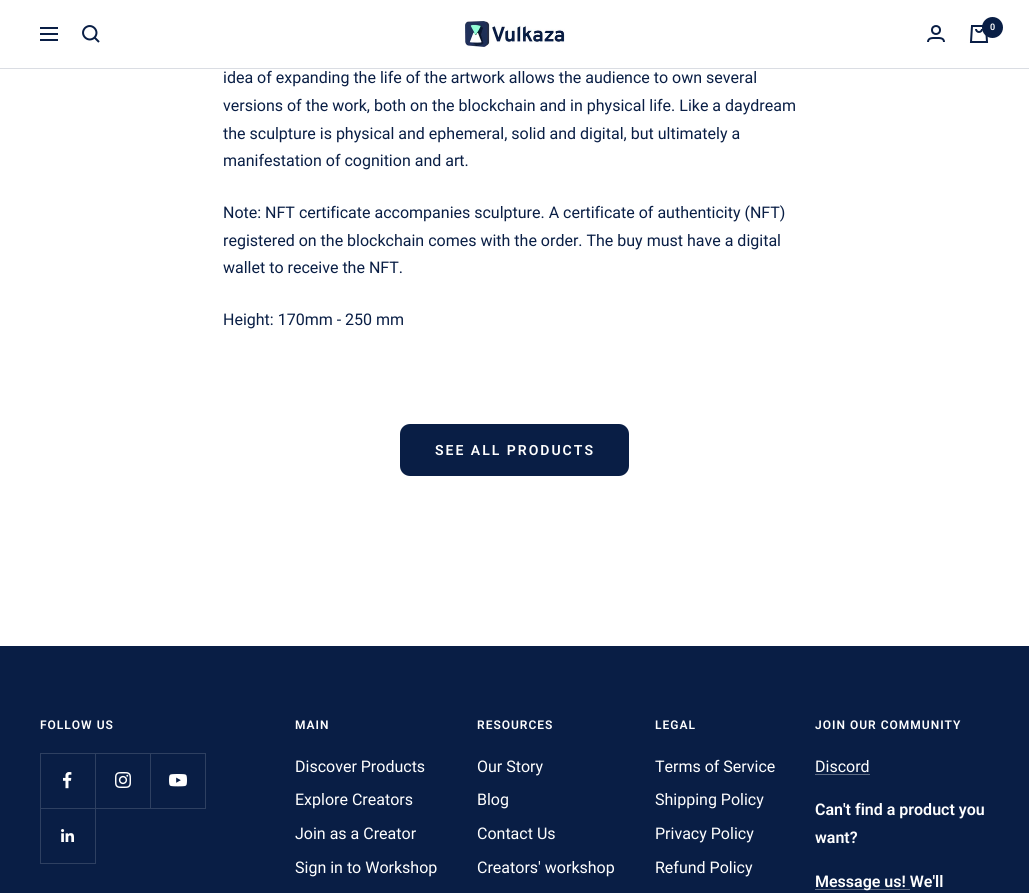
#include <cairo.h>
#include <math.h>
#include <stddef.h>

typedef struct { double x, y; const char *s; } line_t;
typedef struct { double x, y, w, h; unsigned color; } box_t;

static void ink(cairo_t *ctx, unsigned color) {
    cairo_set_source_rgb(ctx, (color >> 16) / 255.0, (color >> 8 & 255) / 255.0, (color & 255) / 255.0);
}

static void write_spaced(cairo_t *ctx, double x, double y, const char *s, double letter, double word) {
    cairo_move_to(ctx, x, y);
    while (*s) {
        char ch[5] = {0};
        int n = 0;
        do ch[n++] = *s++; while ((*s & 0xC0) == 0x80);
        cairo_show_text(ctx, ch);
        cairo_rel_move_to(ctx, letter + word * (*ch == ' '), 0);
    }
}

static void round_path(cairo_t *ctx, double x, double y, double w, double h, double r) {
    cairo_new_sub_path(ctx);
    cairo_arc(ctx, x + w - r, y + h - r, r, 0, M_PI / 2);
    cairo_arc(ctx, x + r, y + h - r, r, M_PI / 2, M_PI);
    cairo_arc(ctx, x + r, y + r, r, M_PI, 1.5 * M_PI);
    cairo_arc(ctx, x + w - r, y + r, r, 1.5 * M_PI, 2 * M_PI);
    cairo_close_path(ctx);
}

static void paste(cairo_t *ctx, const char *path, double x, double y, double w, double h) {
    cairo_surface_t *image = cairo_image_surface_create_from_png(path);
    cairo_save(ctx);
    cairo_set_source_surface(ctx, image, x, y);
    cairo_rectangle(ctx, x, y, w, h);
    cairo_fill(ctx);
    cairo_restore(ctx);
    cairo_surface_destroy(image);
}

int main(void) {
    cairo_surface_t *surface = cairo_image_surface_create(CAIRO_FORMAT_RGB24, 1029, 893);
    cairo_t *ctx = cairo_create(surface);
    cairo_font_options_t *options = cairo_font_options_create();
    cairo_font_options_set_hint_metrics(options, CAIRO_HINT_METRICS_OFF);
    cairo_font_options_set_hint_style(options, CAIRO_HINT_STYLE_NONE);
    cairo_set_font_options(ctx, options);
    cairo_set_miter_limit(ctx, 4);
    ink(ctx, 0xFFFFFF);
    cairo_paint(ctx);
    ink(ctx, 0xDADDE3);
    cairo_rectangle(ctx, 0, 68, 1029, 1);
    cairo_fill(ctx);
    cairo_new_path(ctx);
    cairo_move_to(ctx, 40, 28);
    cairo_line_to(ctx, 58, 28);
    cairo_move_to(ctx, 40, 40);
    cairo_line_to(ctx, 58, 40);
    cairo_close_path(ctx);
    cairo_move_to(ctx, 40, 34);
    cairo_line_to(ctx, 58, 34);
    cairo_close_path(ctx);
    cairo_move_to(ctx, 94.5, 37.5);
    cairo_curve_to(ctx, 100.5, 31, 91.5, 22, 85, 28);
    cairo_curve_to(ctx, 79, 34.5, 88, 43.5, 94.5, 37.5);
    cairo_close_path(ctx);
    cairo_move_to(ctx, 94.5, 37.5);
    cairo_line_to(ctx, 99, 42);
    ink(ctx, 0x091E45);
    cairo_stroke(ctx);
    paste(ctx, "media/1.png", 465, 21, 100, 26);
    cairo_arc(ctx, 936, 30, 4, 0, 2 * M_PI);
    cairo_stroke(ctx);
    cairo_new_path(ctx);
    cairo_move_to(ctx, 928, 42);
    cairo_curve_to(ctx, 928, 37.5, 933, 38, 936, 38);
    cairo_curve_to(ctx, 939, 38, 944, 37.5, 944, 42);
    cairo_stroke(ctx);
    paste(ctx, "media/2.png", 969, 25, 20, 18);
    cairo_arc(ctx, 992.5, 27.5, 10.5, 0, 2 * M_PI);
    cairo_fill(ctx);
    cairo_select_font_face(ctx, "Roboto SemiBold", CAIRO_FONT_SLANT_NORMAL, CAIRO_FONT_WEIGHT_NORMAL);
    cairo_set_font_size(ctx, 9);
    ink(ctx, 0xFFFFFF);
    cairo_move_to(ctx, 990, 30);
    cairo_show_text(ctx, "0");
    cairo_select_font_face(ctx, "Roboto", CAIRO_FONT_SLANT_NORMAL, CAIRO_FONT_WEIGHT_NORMAL);
    cairo_set_font_size(ctx, 16);
    ink(ctx, 0x091E45);
    {
        static const line_t items[] = {
            {223, 83, "idea of expanding the life of the artwork allows the audience to own several"},
            {223, 111, "versions of the work, both on the blockchain and in physical life. Like a daydream"},
            {223, 139, "the sculpture is physical and ephemeral, solid and digital, but ultimately a"},
            {223, 166, "manifestation of cognition and art."},
            {223, 218, "Note: NFT certificate accompanies sculpture. A certificate of authenticity (NFT)"},
            {223, 246, "registered on the blockchain comes with the order. The buy must have a digital"},
            {223, 273, "wallet to receive the NFT."},
            {223, 325, "Height: 170mm - 250 mm"},
        };
        for (size_t i = 0; i < sizeof items / sizeof *items; i++) {
            cairo_move_to(ctx, items[i].x, items[i].y);
            cairo_show_text(ctx, items[i].s);
        }
    }
    round_path(ctx, 400, 424, 229, 52, 10);
    cairo_fill(ctx);
    cairo_select_font_face(ctx, "Roboto SemiBold", CAIRO_FONT_SLANT_NORMAL, CAIRO_FONT_WEIGHT_NORMAL);
    cairo_set_font_size(ctx, 14);
    ink(ctx, 0xFFFFFF);
    write_spaced(ctx, 435, 455, "SEE ALL PRODUCTS", 2, 0);
    ink(ctx, 0x091E45);
    cairo_rectangle(ctx, 0, 646, 1029, 247);
    cairo_fill(ctx);
    cairo_set_font_size(ctx, 12);
    ink(ctx, 0xFFFFFF);
    write_spaced(ctx, 40, 729, "FOLLOW US", 1, 0);
    ink(ctx, 0x2E4061);
    cairo_new_path(ctx);
    cairo_move_to(ctx, 41, 808);
    cairo_line_to(ctx, 41, 809);
    cairo_line_to(ctx, 96, 809);
    cairo_line_to(ctx, 96, 754);
    cairo_line_to(ctx, 95, 754);
    cairo_line_to(ctx, 95, 808);
    cairo_close_path(ctx);
    cairo_fill(ctx);
    {
        static const box_t items[] = {
            {40, 808, 1, 1, 0x2E4061},
            {40, 753, 56, 1, 0x2E4061},
            {40, 753, 1, 55, 0x2E4061},
        };
        for (size_t i = 0; i < sizeof items / sizeof *items; i++) {
            ink(ctx, items[i].color);
            cairo_rectangle(ctx, items[i].x, items[i].y, items[i].w, items[i].h);
            cairo_fill(ctx);
        }
    }
    paste(ctx, "media/3.png", 63, 772, 9, 17);
    cairo_new_path(ctx);
    cairo_move_to(ctx, 96, 808);
    cairo_line_to(ctx, 96, 809);
    cairo_line_to(ctx, 151, 809);
    cairo_line_to(ctx, 151, 754);
    cairo_line_to(ctx, 150, 754);
    cairo_line_to(ctx, 150, 808);
    cairo_close_path(ctx);
    cairo_fill(ctx);
    cairo_rectangle(ctx, 95, 753, 56, 1);
    cairo_fill(ctx);
    paste(ctx, "media/4.png", 115, 772, 16, 16);
    cairo_new_path(ctx);
    cairo_move_to(ctx, 151, 808);
    cairo_line_to(ctx, 151, 809);
    cairo_line_to(ctx, 206, 809);
    cairo_line_to(ctx, 206, 754);
    cairo_line_to(ctx, 205, 754);
    cairo_line_to(ctx, 205, 808);
    cairo_close_path(ctx);
    cairo_fill(ctx);
    cairo_rectangle(ctx, 150, 753, 56, 1);
    cairo_fill(ctx);
    paste(ctx, "media/5.png", 169, 774, 18, 13);
    cairo_new_path(ctx);
    cairo_move_to(ctx, 41, 863);
    cairo_line_to(ctx, 41, 864);
    cairo_line_to(ctx, 96, 864);
    cairo_line_to(ctx, 96, 809);
    cairo_line_to(ctx, 95, 809);
    cairo_line_to(ctx, 95, 863);
    cairo_close_path(ctx);
    cairo_fill(ctx);
    cairo_rectangle(ctx, 40, 808, 1, 56);
    cairo_fill(ctx);
    paste(ctx, "media/6.png", 61, 829, 13, 13);
    ink(ctx, 0xFFFFFF);
    write_spaced(ctx, 295, 729, "MAIN", 1, 0);
    cairo_select_font_face(ctx, "Roboto", CAIRO_FONT_SLANT_NORMAL, CAIRO_FONT_WEIGHT_NORMAL);
    cairo_set_font_size(ctx, 16);
    {
        static const line_t items[] = {
            {295, 772, "Discover Products"},
            {295, 805, "Explore Creators"},
            {295, 839, "Join as a Creator"},
            {295, 873, "Sign in to Workshop"},
        };
        for (size_t i = 0; i < sizeof items / sizeof *items; i++) {
            cairo_move_to(ctx, items[i].x, items[i].y);
            cairo_show_text(ctx, items[i].s);
        }
    }
    cairo_select_font_face(ctx, "Roboto SemiBold", CAIRO_FONT_SLANT_NORMAL, CAIRO_FONT_WEIGHT_NORMAL);
    cairo_set_font_size(ctx, 12);
    write_spaced(ctx, 477, 729, "RESOURCES", 1, 0);
    cairo_select_font_face(ctx, "Roboto", CAIRO_FONT_SLANT_NORMAL, CAIRO_FONT_WEIGHT_NORMAL);
    cairo_set_font_size(ctx, 16);
    {
        static const line_t items[] = {
            {477, 772, "Our Story"},
            {477, 805, "Blog"},
            {477, 839, "Contact Us"},
            {477, 873, "Creators' workshop"},
        };
        for (size_t i = 0; i < sizeof items / sizeof *items; i++) {
            cairo_move_to(ctx, items[i].x, items[i].y);
            cairo_show_text(ctx, items[i].s);
        }
    }
    cairo_select_font_face(ctx, "Roboto SemiBold", CAIRO_FONT_SLANT_NORMAL, CAIRO_FONT_WEIGHT_NORMAL);
    cairo_set_font_size(ctx, 12);
    write_spaced(ctx, 655, 729, "LEGAL", 1, 0);
    cairo_select_font_face(ctx, "Roboto", CAIRO_FONT_SLANT_NORMAL, CAIRO_FONT_WEIGHT_NORMAL);
    cairo_set_font_size(ctx, 16);
    {
        static const line_t items[] = {
            {655, 772, "Terms of Service"},
            {655, 805, "Shipping Policy"},
            {655, 839, "Privacy Policy"},
            {655, 873, "Refund Policy"},
        };
        for (size_t i = 0; i < sizeof items / sizeof *items; i++) {
            cairo_move_to(ctx, items[i].x, items[i].y);
            cairo_show_text(ctx, items[i].s);
        }
    }
    cairo_select_font_face(ctx, "Roboto SemiBold", CAIRO_FONT_SLANT_NORMAL, CAIRO_FONT_WEIGHT_NORMAL);
    cairo_set_font_size(ctx, 12);
    write_spaced(ctx, 815, 729, "JOIN OUR COMMUNITY", 1, 0);
    cairo_select_font_face(ctx, "Roboto", CAIRO_FONT_SLANT_NORMAL, CAIRO_FONT_WEIGHT_NORMAL);
    cairo_set_font_size(ctx, 16);
    cairo_move_to(ctx, 815, 772);
    cairo_show_text(ctx, "Discord");
    ink(ctx, 0x5F6D86);
    cairo_rectangle(ctx, 815, 774, 55, 1);
    cairo_fill(ctx);
    cairo_select_font_face(ctx, "Roboto SemiBold", CAIRO_FONT_SLANT_NORMAL, CAIRO_FONT_WEIGHT_NORMAL);
    ink(ctx, 0xFFFFFF);
    cairo_move_to(ctx, 815, 815);
    cairo_show_text(ctx, "Can't find a product you");
    cairo_move_to(ctx, 815, 843);
    cairo_show_text(ctx, "want?");
    ink(ctx, 0x5F6D86);
    cairo_rectangle(ctx, 815, 889, 95, 1);
    cairo_fill(ctx);
    ink(ctx, 0xFFFFFF);
    cairo_move_to(ctx, 815, 887);
    cairo_show_text(ctx, "Message us! We'll");
    cairo_surface_write_to_png(surface, "image.png");
    cairo_font_options_destroy(options);
    cairo_destroy(ctx);
    cairo_surface_destroy(surface);
    return 0;
}
